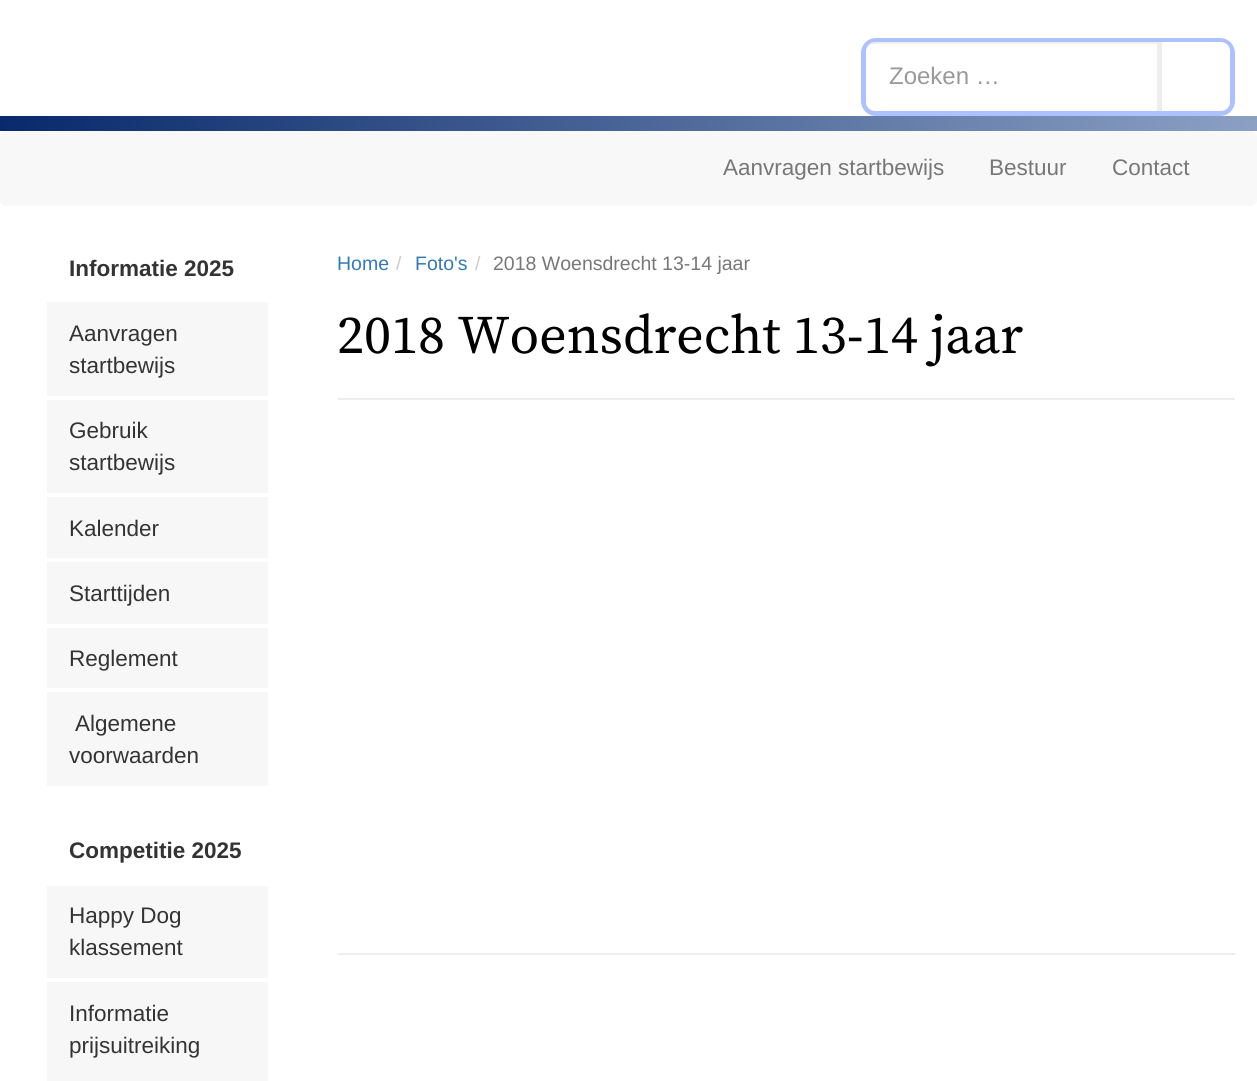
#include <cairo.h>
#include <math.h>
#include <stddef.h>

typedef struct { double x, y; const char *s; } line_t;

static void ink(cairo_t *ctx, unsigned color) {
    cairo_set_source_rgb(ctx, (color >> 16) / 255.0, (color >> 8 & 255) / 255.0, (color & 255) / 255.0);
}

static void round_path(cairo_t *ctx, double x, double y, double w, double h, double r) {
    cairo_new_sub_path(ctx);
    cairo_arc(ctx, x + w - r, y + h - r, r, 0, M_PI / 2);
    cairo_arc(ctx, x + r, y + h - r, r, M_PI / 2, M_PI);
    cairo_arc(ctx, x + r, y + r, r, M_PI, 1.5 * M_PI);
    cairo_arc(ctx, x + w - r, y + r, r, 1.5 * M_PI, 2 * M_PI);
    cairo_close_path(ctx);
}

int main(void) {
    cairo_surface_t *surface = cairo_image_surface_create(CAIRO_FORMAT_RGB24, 1257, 1081);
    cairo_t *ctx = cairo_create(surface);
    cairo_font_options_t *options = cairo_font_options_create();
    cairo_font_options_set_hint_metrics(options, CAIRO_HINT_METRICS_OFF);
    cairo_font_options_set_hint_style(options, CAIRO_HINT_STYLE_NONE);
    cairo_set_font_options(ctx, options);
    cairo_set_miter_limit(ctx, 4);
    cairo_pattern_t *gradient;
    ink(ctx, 0xFFFFFF);
    cairo_paint(ctx);
    ink(ctx, 0xADC1FC);
    round_path(ctx, 861, 38, 374, 78, 15);
    cairo_fill(ctx);
    ink(ctx, 0xFFFFFF);
    cairo_new_path(ctx);
    cairo_move_to(ctx, 875, 42);
    cairo_line_to(ctx, 1158, 42);
    cairo_line_to(ctx, 1158, 111);
    cairo_line_to(ctx, 875, 111);
    cairo_curve_to(ctx, 870, 111, 866, 107, 866, 102);
    cairo_line_to(ctx, 866, 51);
    cairo_curve_to(ctx, 866, 46, 870, 42, 875, 42);
    cairo_close_path(ctx);
    cairo_fill(ctx);
    cairo_set_source_rgba(ctx, 0, 0, 0, 0.07);
    cairo_new_path(ctx);
    cairo_move_to(ctx, 874, 44);
    cairo_line_to(ctx, 1158, 44);
    cairo_line_to(ctx, 1158, 42);
    cairo_line_to(ctx, 875, 42);
    cairo_curve_to(ctx, 869, 42, 866, 47, 866, 52);
    cairo_curve_to(ctx, 866, 48, 870, 44, 874, 44);
    cairo_close_path(ctx);
    cairo_fill(ctx);
    cairo_select_font_face(ctx, "Liberation Sans", CAIRO_FONT_SLANT_NORMAL, CAIRO_FONT_WEIGHT_NORMAL);
    cairo_set_font_size(ctx, 24);
    ink(ctx, 0x999999);
    cairo_move_to(ctx, 889, 84);
    cairo_show_text(ctx, "Zoeken …");
    ink(ctx, 0xFFFFFF);
    cairo_new_path(ctx);
    cairo_move_to(ctx, 1161, 42);
    cairo_line_to(ctx, 1221, 42);
    cairo_curve_to(ctx, 1226, 42, 1230, 46, 1230, 51);
    cairo_line_to(ctx, 1230, 102);
    cairo_curve_to(ctx, 1230, 107, 1226, 111, 1221, 111);
    cairo_line_to(ctx, 1161, 111);
    cairo_close_path(ctx);
    cairo_fill(ctx);
    ink(ctx, 0xEEEEEE);
    cairo_rectangle(ctx, 1157, 42, 5, 69);
    cairo_fill(ctx);
    gradient = cairo_pattern_create_linear(0, 123, 1257, 123);
    cairo_pattern_add_color_stop_rgba(gradient, 0, 0.031, 0.161, 0.42, 1);
    cairo_pattern_add_color_stop_rgba(gradient, 1, 0.545, 0.627, 0.765, 1);
    cairo_set_source(ctx, gradient);
    cairo_pattern_destroy(gradient);
    cairo_rectangle(ctx, 0, 116, 1257, 15);
    cairo_fill(ctx);
    ink(ctx, 0xF8F8F8);
    round_path(ctx, 0, 131, 1257, 75, 6);
    cairo_fill(ctx);
    cairo_set_font_size(ctx, 22.5);
    ink(ctx, 0x777777);
    {
        static const line_t items[] = {
            {723, 175, "Aanvragen startbewijs"},
            {989, 175, "Bestuur"},
            {1112, 175, "Contact"},
        };
        for (size_t i = 0; i < sizeof items / sizeof *items; i++) {
            cairo_move_to(ctx, items[i].x, items[i].y);
            cairo_show_text(ctx, items[i].s);
        }
    }
    cairo_select_font_face(ctx, "Liberation Sans", CAIRO_FONT_SLANT_NORMAL, CAIRO_FONT_WEIGHT_BOLD);
    ink(ctx, 0x333333);
    cairo_move_to(ctx, 69, 276);
    cairo_show_text(ctx, "Informatie 2025");
    ink(ctx, 0xF7F7F7);
    cairo_rectangle(ctx, 47, 302, 221, 94);
    cairo_fill(ctx);
    cairo_select_font_face(ctx, "Liberation Sans", CAIRO_FONT_SLANT_NORMAL, CAIRO_FONT_WEIGHT_NORMAL);
    ink(ctx, 0x333333);
    cairo_move_to(ctx, 69, 341);
    cairo_show_text(ctx, "Aanvragen");
    cairo_move_to(ctx, 69, 373);
    cairo_show_text(ctx, "startbewijs");
    ink(ctx, 0xF7F7F7);
    cairo_rectangle(ctx, 47, 400, 221, 93);
    cairo_fill(ctx);
    ink(ctx, 0x333333);
    cairo_move_to(ctx, 69, 438);
    cairo_show_text(ctx, "Gebruik");
    cairo_move_to(ctx, 69, 470);
    cairo_show_text(ctx, "startbewijs");
    ink(ctx, 0xF7F7F7);
    cairo_rectangle(ctx, 47, 497, 221, 61);
    cairo_fill(ctx);
    ink(ctx, 0x333333);
    cairo_move_to(ctx, 69, 536);
    cairo_show_text(ctx, "Kalender");
    ink(ctx, 0xF7F7F7);
    cairo_rectangle(ctx, 47, 562, 221, 62);
    cairo_fill(ctx);
    ink(ctx, 0x333333);
    cairo_move_to(ctx, 69, 601);
    cairo_show_text(ctx, "Starttijden");
    ink(ctx, 0xF7F7F7);
    cairo_rectangle(ctx, 47, 628, 221, 60);
    cairo_fill(ctx);
    ink(ctx, 0x333333);
    cairo_move_to(ctx, 69, 666);
    cairo_show_text(ctx, "Reglement");
    ink(ctx, 0xF7F7F7);
    cairo_rectangle(ctx, 47, 692, 221, 94);
    cairo_fill(ctx);
    ink(ctx, 0x333333);
    cairo_move_to(ctx, 75, 731);
    cairo_show_text(ctx, "Algemene");
    cairo_move_to(ctx, 69, 763);
    cairo_show_text(ctx, "voorwaarden");
    cairo_select_font_face(ctx, "Liberation Sans", CAIRO_FONT_SLANT_NORMAL, CAIRO_FONT_WEIGHT_BOLD);
    cairo_move_to(ctx, 69, 858);
    cairo_show_text(ctx, "Competitie 2025");
    ink(ctx, 0xF7F7F7);
    cairo_rectangle(ctx, 47, 886, 221, 92);
    cairo_fill(ctx);
    cairo_select_font_face(ctx, "Liberation Sans", CAIRO_FONT_SLANT_NORMAL, CAIRO_FONT_WEIGHT_NORMAL);
    ink(ctx, 0x333333);
    cairo_move_to(ctx, 69, 923);
    cairo_show_text(ctx, "Happy Dog");
    cairo_move_to(ctx, 69, 955);
    cairo_show_text(ctx, "klassement");
    ink(ctx, 0xF7F7F7);
    cairo_rectangle(ctx, 47, 982, 221, 99);
    cairo_fill(ctx);
    ink(ctx, 0x333333);
    cairo_move_to(ctx, 69, 1021);
    cairo_show_text(ctx, "Informatie");
    cairo_move_to(ctx, 69, 1053);
    cairo_show_text(ctx, "prijsuitreiking");
    cairo_set_font_size(ctx, 19.5);
    ink(ctx, 0x337AB7);
    cairo_move_to(ctx, 337, 270);
    cairo_show_text(ctx, "Home");
    ink(ctx, 0xCCCCCC);
    cairo_move_to(ctx, 396, 270);
    cairo_show_text(ctx, "/");
    ink(ctx, 0x337AB7);
    cairo_move_to(ctx, 415, 270);
    cairo_show_text(ctx, "Foto's");
    ink(ctx, 0xCCCCCC);
    cairo_move_to(ctx, 475, 270);
    cairo_show_text(ctx, "/");
    ink(ctx, 0x777777);
    cairo_move_to(ctx, 493, 270);
    cairo_show_text(ctx, "2018 Woensdrecht 13-14 jaar");
    cairo_select_font_face(ctx, "Source Serif Pro", CAIRO_FONT_SLANT_NORMAL, CAIRO_FONT_WEIGHT_NORMAL);
    cairo_set_font_size(ctx, 54);
    ink(ctx, 0x000000);
    cairo_move_to(ctx, 337, 353);
    cairo_show_text(ctx, "2018 Woensdrecht 13-14 jaar");
    ink(ctx, 0xEEEEEE);
    cairo_rectangle(ctx, 338, 398, 897, 2);
    cairo_fill(ctx);
    cairo_rectangle(ctx, 338, 953, 897, 2);
    cairo_fill(ctx);
    cairo_surface_write_to_png(surface, "image.png");
    cairo_font_options_destroy(options);
    cairo_destroy(ctx);
    cairo_surface_destroy(surface);
    return 0;
}
